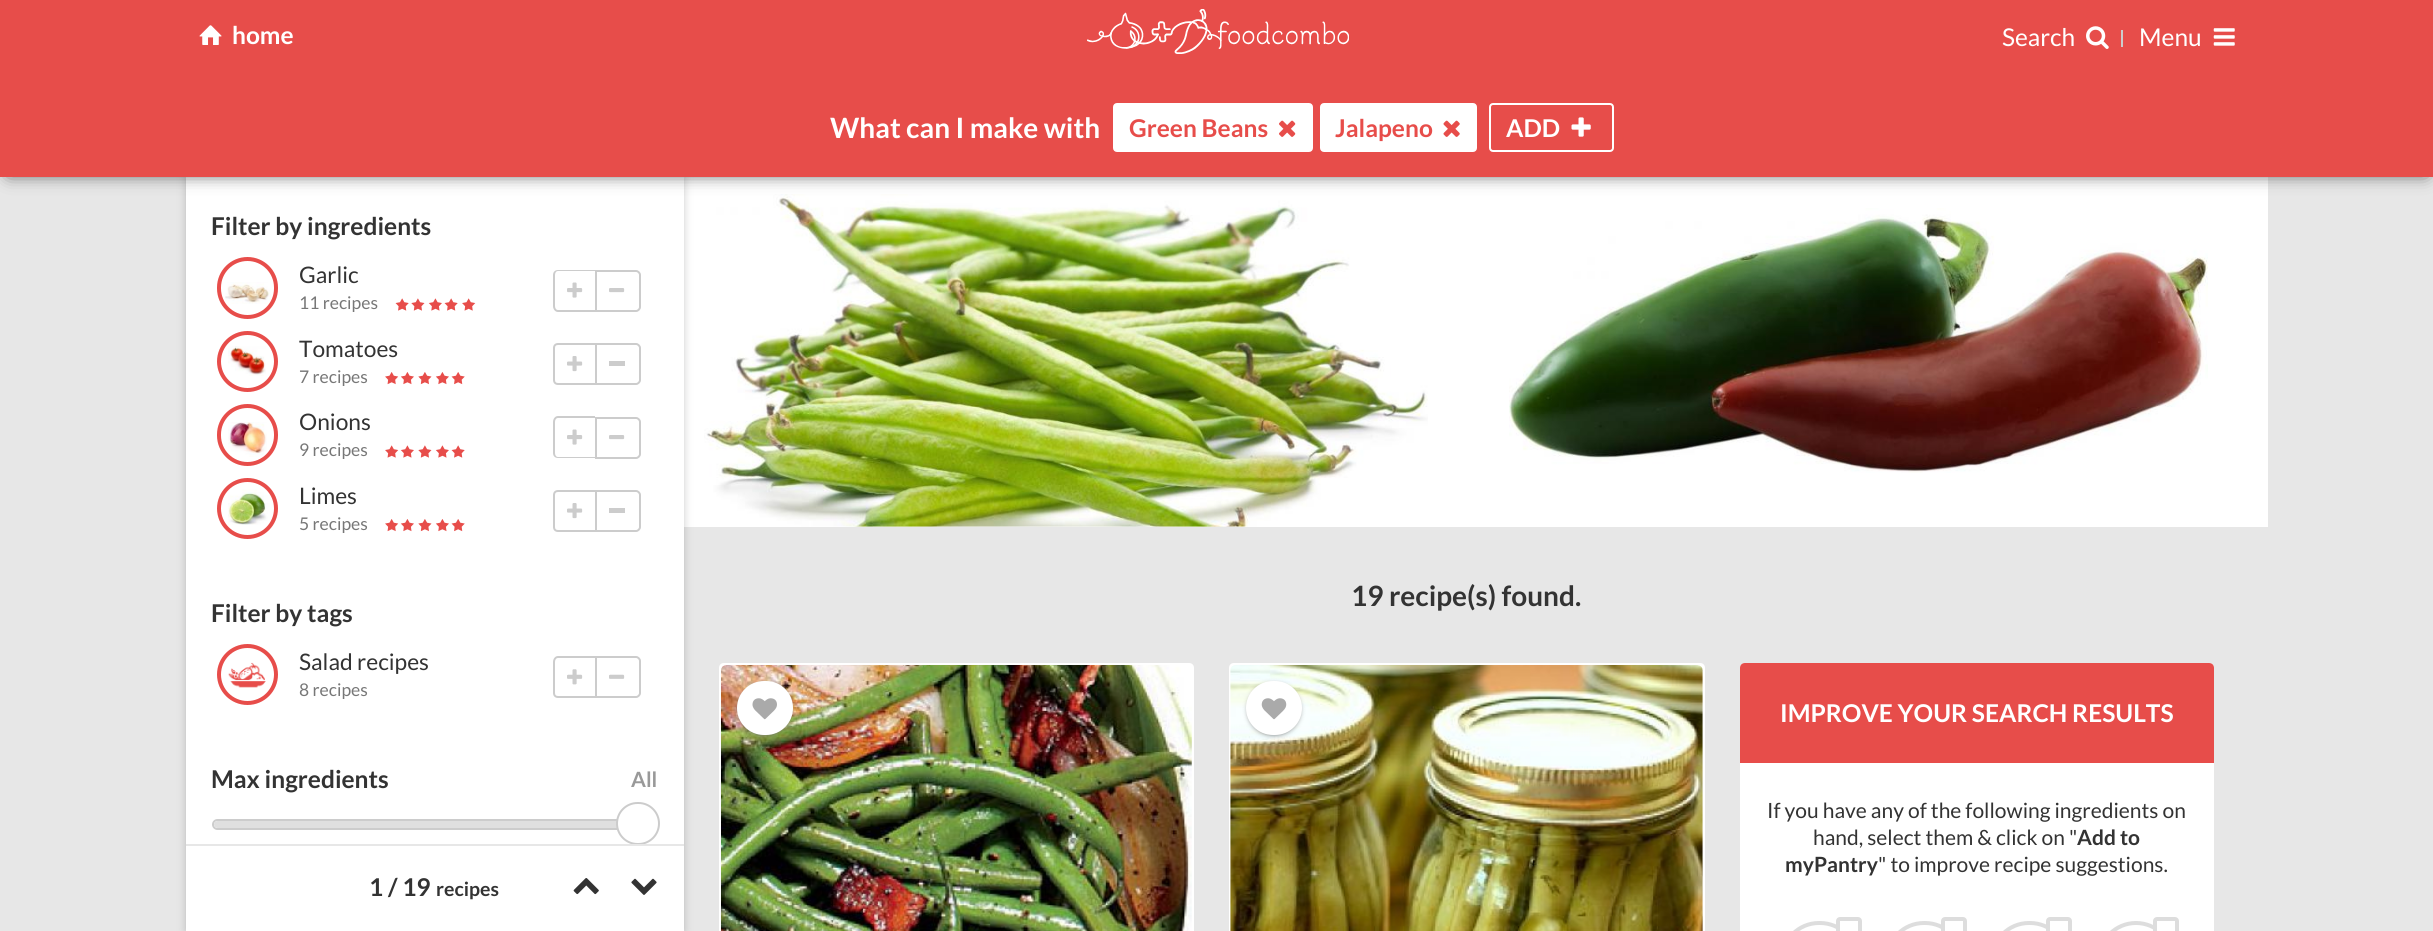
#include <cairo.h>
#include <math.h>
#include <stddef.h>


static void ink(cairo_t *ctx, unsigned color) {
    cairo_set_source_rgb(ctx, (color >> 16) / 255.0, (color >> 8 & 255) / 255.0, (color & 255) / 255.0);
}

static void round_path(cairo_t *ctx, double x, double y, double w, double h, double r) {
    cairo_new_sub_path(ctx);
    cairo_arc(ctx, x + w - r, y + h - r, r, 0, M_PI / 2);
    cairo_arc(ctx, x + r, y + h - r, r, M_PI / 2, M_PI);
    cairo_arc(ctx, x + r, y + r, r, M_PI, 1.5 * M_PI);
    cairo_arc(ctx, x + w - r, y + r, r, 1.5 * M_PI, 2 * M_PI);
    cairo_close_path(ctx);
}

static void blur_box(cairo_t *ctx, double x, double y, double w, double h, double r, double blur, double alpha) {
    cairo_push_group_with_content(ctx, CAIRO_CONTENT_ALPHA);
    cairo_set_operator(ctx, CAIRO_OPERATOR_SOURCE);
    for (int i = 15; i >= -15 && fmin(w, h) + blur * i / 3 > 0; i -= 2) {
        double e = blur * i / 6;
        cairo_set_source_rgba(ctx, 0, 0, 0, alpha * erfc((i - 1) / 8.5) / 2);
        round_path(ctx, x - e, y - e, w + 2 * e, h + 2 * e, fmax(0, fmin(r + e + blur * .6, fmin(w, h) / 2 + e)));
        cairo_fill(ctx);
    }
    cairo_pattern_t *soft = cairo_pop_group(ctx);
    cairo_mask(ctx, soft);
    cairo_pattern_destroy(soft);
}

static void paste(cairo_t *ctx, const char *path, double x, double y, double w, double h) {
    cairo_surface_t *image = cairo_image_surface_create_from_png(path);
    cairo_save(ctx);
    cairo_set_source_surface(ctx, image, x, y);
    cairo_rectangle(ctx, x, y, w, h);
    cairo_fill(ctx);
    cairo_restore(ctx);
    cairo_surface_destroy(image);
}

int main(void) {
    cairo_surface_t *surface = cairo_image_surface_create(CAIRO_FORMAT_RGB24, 2433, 931);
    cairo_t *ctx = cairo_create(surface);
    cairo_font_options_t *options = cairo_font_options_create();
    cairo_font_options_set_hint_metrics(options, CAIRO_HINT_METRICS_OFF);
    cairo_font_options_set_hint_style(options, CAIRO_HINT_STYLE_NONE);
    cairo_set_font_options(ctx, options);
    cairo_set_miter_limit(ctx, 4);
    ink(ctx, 0xE7E7E7);
    cairo_paint(ctx);
    ink(ctx, 0xFFFFFF);
    cairo_rectangle(ctx, 684, 177, 1584, 350);
    cairo_fill(ctx);
    ink(ctx, 0x000000);
    blur_box(ctx, 186, 177, 498, 754, 0, 4.5, 0.2);
    ink(ctx, 0xFFFFFF);
    cairo_rectangle(ctx, 186, 177, 498, 754);
    cairo_fill(ctx);
    paste(ctx, "media/28.png", 704, 194, 724, 333);
    ink(ctx, 0x333333);
    blur_box(ctx, 9, 93, 2417, 80, 0, 9, 1);
    ink(ctx, 0xE74D4A);
    cairo_rectangle(ctx, 0, 0, 2433, 177);
    cairo_fill(ctx);
    paste(ctx, "media/1.png", 199, 25, 23, 20);
    cairo_select_font_face(ctx, "Lato", CAIRO_FONT_SLANT_NORMAL, CAIRO_FONT_WEIGHT_BOLD);
    cairo_set_font_size(ctx, 24.5);
    ink(ctx, 0xFFFFFF);
    cairo_move_to(ctx, 232, 44);
    cairo_show_text(ctx, "home");
    paste(ctx, "media/2.png", 1087, 9, 262, 45);
    cairo_select_font_face(ctx, "Lato", CAIRO_FONT_SLANT_NORMAL, CAIRO_FONT_WEIGHT_NORMAL);
    cairo_move_to(ctx, 2002, 46);
    cairo_show_text(ctx, "Search");
    paste(ctx, "media/3.png", 2086, 26, 23, 23);
    ink(ctx, 0xCCCCCC);
    cairo_rectangle(ctx, 2121, 30, 2, 17);
    cairo_fill(ctx);
    ink(ctx, 0xFFFFFF);
    cairo_move_to(ctx, 2139, 46);
    cairo_show_text(ctx, "Menu");
    paste(ctx, "media/4.png", 2213, 28, 22, 18);
    cairo_select_font_face(ctx, "Lato", CAIRO_FONT_SLANT_NORMAL, CAIRO_FONT_WEIGHT_BOLD);
    cairo_set_font_size(ctx, 28);
    cairo_move_to(ctx, 830, 138);
    cairo_show_text(ctx, "What can I make with");
    round_path(ctx, 1114, 104, 198, 47, 3);
    cairo_fill_preserve(ctx);
    cairo_stroke(ctx);
    cairo_set_font_size(ctx, 24.5);
    ink(ctx, 0xE74D4A);
    cairo_move_to(ctx, 1129, 137);
    cairo_show_text(ctx, "Green Beans");
    paste(ctx, "media/5.png", 1279, 120, 17, 17);
    ink(ctx, 0xFFFFFF);
    round_path(ctx, 1321, 104, 155, 47, 3);
    cairo_fill_preserve(ctx);
    cairo_stroke(ctx);
    ink(ctx, 0xE74D4A);
    cairo_move_to(ctx, 1335, 137);
    cairo_show_text(ctx, "Jalapeno");
    paste(ctx, "media/6.png", 1443, 120, 17, 17);
    round_path(ctx, 1490, 104, 123, 47, 3);
    ink(ctx, 0xFFFFFF);
    cairo_stroke(ctx);
    cairo_move_to(ctx, 1506, 137);
    cairo_show_text(ctx, "ADD");
    paste(ctx, "media/7.png", 1571, 117, 20, 20);
    ink(ctx, 0x333333);
    cairo_move_to(ctx, 211, 235);
    cairo_show_text(ctx, "Filter by ingredients");
    paste(ctx, "media/8.png", 225, 282, 46, 22);
    round_path(ctx, 219, 259, 57, 58, 28.5);
    ink(ctx, 0xE74D4A);
    cairo_set_line_width(ctx, 4);
    cairo_stroke(ctx);
    cairo_select_font_face(ctx, "Lato", CAIRO_FONT_SLANT_NORMAL, CAIRO_FONT_WEIGHT_NORMAL);
    cairo_set_font_size(ctx, 22.75);
    ink(ctx, 0x333333);
    cairo_move_to(ctx, 299, 283);
    cairo_show_text(ctx, "Garlic");
    ink(ctx, 0xCCCCCC);
    cairo_set_fill_rule(ctx, CAIRO_FILL_RULE_EVEN_ODD);
    cairo_new_path(ctx);
    cairo_move_to(ctx, 558, 270);
    cairo_line_to(ctx, 595, 270);
    cairo_line_to(ctx, 595, 312);
    cairo_line_to(ctx, 558, 312);
    cairo_curve_to(ctx, 555, 312, 553, 309, 553, 306);
    cairo_line_to(ctx, 553, 275);
    cairo_curve_to(ctx, 553, 272, 555, 270, 558, 270);
    cairo_close_path(ctx);
    cairo_move_to(ctx, 558, 271);
    cairo_line_to(ctx, 595, 271);
    cairo_line_to(ctx, 595, 310);
    cairo_line_to(ctx, 558, 310);
    cairo_curve_to(ctx, 556, 310, 555, 308, 555, 306);
    cairo_line_to(ctx, 555, 275);
    cairo_curve_to(ctx, 555, 273, 556, 271, 558, 271);
    cairo_close_path(ctx);
    cairo_fill(ctx);
    paste(ctx, "media/9.png", 567, 282, 16, 16);
    cairo_new_path(ctx);
    cairo_move_to(ctx, 596, 271);
    cairo_line_to(ctx, 636, 271);
    cairo_curve_to(ctx, 638, 271, 640, 273, 640, 275);
    cairo_line_to(ctx, 640, 307);
    cairo_curve_to(ctx, 640, 309, 638, 311, 636, 311);
    cairo_line_to(ctx, 596, 311);
    cairo_close_path(ctx);
    cairo_set_line_width(ctx, 2);
    cairo_stroke(ctx);
    paste(ctx, "media/10.png", 609, 288, 16, 5);
    cairo_set_font_size(ctx, 17.5);
    ink(ctx, 0x777777);
    cairo_move_to(ctx, 299, 309);
    cairo_show_text(ctx, "11 recipes");
    paste(ctx, "media/11.png", 395, 298, 14, 13);
    paste(ctx, "media/12.png", 411, 298, 14, 13);
    paste(ctx, "media/13.png", 428, 298, 14, 13);
    paste(ctx, "media/11.png", 444, 298, 14, 13);
    paste(ctx, "media/14.png", 462, 298, 14, 13);
    paste(ctx, "media/15.png", 228, 346, 38, 30);
    cairo_arc(ctx, 247.5, 361.5, 28.5, 0, 2 * M_PI);
    ink(ctx, 0xE74D4A);
    cairo_set_line_width(ctx, 4);
    cairo_stroke(ctx);
    cairo_set_font_size(ctx, 22.75);
    ink(ctx, 0x333333);
    cairo_move_to(ctx, 299, 357);
    cairo_show_text(ctx, "Tomatoes");
    ink(ctx, 0xCCCCCC);
    cairo_new_path(ctx);
    cairo_move_to(ctx, 558, 343);
    cairo_line_to(ctx, 595, 343);
    cairo_line_to(ctx, 595, 385);
    cairo_line_to(ctx, 558, 385);
    cairo_curve_to(ctx, 555, 385, 553, 383, 553, 380);
    cairo_line_to(ctx, 553, 348);
    cairo_curve_to(ctx, 553, 345, 555, 343, 558, 343);
    cairo_close_path(ctx);
    cairo_move_to(ctx, 558, 345);
    cairo_line_to(ctx, 595, 345);
    cairo_line_to(ctx, 595, 383);
    cairo_line_to(ctx, 558, 383);
    cairo_curve_to(ctx, 556, 383, 555, 382, 555, 380);
    cairo_line_to(ctx, 555, 348);
    cairo_curve_to(ctx, 555, 346, 556, 345, 558, 345);
    cairo_close_path(ctx);
    cairo_fill(ctx);
    paste(ctx, "media/16.png", 567, 356, 16, 16);
    cairo_new_path(ctx);
    cairo_move_to(ctx, 596, 344);
    cairo_line_to(ctx, 636, 344);
    cairo_curve_to(ctx, 638, 344, 640, 346, 640, 348);
    cairo_line_to(ctx, 640, 380);
    cairo_curve_to(ctx, 640, 382, 638, 384, 636, 384);
    cairo_line_to(ctx, 596, 384);
    cairo_close_path(ctx);
    cairo_set_line_width(ctx, 2);
    cairo_stroke(ctx);
    cairo_rectangle(ctx, 609, 361, 16, 5);
    cairo_fill(ctx);
    cairo_set_font_size(ctx, 17.5);
    ink(ctx, 0x777777);
    cairo_move_to(ctx, 299, 383);
    cairo_show_text(ctx, "7 recipes");
    paste(ctx, "media/17.png", 385, 372, 14, 13);
    paste(ctx, "media/18.png", 400, 372, 14, 13);
    paste(ctx, "media/19.png", 418, 372, 14, 13);
    paste(ctx, "media/18.png", 435, 372, 14, 13);
    paste(ctx, "media/20.png", 451, 372, 14, 13);
    paste(ctx, "media/21.png", 228, 422, 39, 35);
    round_path(ctx, 219, 406, 57, 58, 28.5);
    ink(ctx, 0xE74D4A);
    cairo_set_line_width(ctx, 4);
    cairo_stroke(ctx);
    cairo_set_font_size(ctx, 22.75);
    ink(ctx, 0x333333);
    cairo_move_to(ctx, 299, 430);
    cairo_show_text(ctx, "Onions");
    ink(ctx, 0xCCCCCC);
    cairo_new_path(ctx);
    cairo_move_to(ctx, 558, 416);
    cairo_line_to(ctx, 595, 416);
    cairo_line_to(ctx, 595, 458);
    cairo_line_to(ctx, 558, 458);
    cairo_curve_to(ctx, 555, 458, 553, 456, 553, 453);
    cairo_line_to(ctx, 553, 422);
    cairo_curve_to(ctx, 553, 419, 555, 416, 558, 416);
    cairo_close_path(ctx);
    cairo_move_to(ctx, 558, 418);
    cairo_line_to(ctx, 595, 418);
    cairo_line_to(ctx, 595, 457);
    cairo_line_to(ctx, 558, 457);
    cairo_curve_to(ctx, 556, 457, 555, 455, 555, 453);
    cairo_line_to(ctx, 555, 422);
    cairo_curve_to(ctx, 555, 420, 556, 418, 558, 418);
    cairo_close_path(ctx);
    cairo_fill(ctx);
    paste(ctx, "media/9.png", 567, 429, 16, 16);
    cairo_new_path(ctx);
    cairo_move_to(ctx, 596, 418);
    cairo_line_to(ctx, 636, 418);
    cairo_curve_to(ctx, 638, 418, 640, 420, 640, 422);
    cairo_line_to(ctx, 640, 454);
    cairo_curve_to(ctx, 640, 456, 638, 458, 636, 458);
    cairo_line_to(ctx, 596, 458);
    cairo_close_path(ctx);
    cairo_set_line_width(ctx, 2);
    cairo_stroke(ctx);
    paste(ctx, "media/10.png", 609, 435, 16, 5);
    cairo_set_font_size(ctx, 17.5);
    ink(ctx, 0x777777);
    cairo_move_to(ctx, 299, 456);
    cairo_show_text(ctx, "9 recipes");
    paste(ctx, "media/14.png", 385, 445, 14, 13);
    paste(ctx, "media/13.png", 400, 445, 14, 13);
    paste(ctx, "media/12.png", 418, 445, 14, 13);
    paste(ctx, "media/13.png", 435, 445, 14, 13);
    paste(ctx, "media/11.png", 451, 445, 14, 13);
    paste(ctx, "media/22.png", 228, 489, 42, 36);
    cairo_arc(ctx, 247.5, 508.5, 28.5, 0, 2 * M_PI);
    ink(ctx, 0xE74D4A);
    cairo_set_line_width(ctx, 4);
    cairo_stroke(ctx);
    cairo_set_font_size(ctx, 22.75);
    ink(ctx, 0x333333);
    cairo_move_to(ctx, 299, 504);
    cairo_show_text(ctx, "Limes");
    ink(ctx, 0xCCCCCC);
    cairo_new_path(ctx);
    cairo_move_to(ctx, 558, 490);
    cairo_line_to(ctx, 595, 490);
    cairo_line_to(ctx, 595, 532);
    cairo_line_to(ctx, 558, 532);
    cairo_curve_to(ctx, 555, 532, 553, 530, 553, 527);
    cairo_line_to(ctx, 553, 495);
    cairo_curve_to(ctx, 553, 492, 555, 490, 558, 490);
    cairo_close_path(ctx);
    cairo_move_to(ctx, 558, 492);
    cairo_line_to(ctx, 595, 492);
    cairo_line_to(ctx, 595, 530);
    cairo_line_to(ctx, 558, 530);
    cairo_curve_to(ctx, 556, 530, 555, 529, 555, 527);
    cairo_line_to(ctx, 555, 495);
    cairo_curve_to(ctx, 555, 493, 556, 492, 558, 492);
    cairo_close_path(ctx);
    cairo_fill(ctx);
    paste(ctx, "media/16.png", 567, 503, 16, 16);
    cairo_new_path(ctx);
    cairo_move_to(ctx, 596, 491);
    cairo_line_to(ctx, 636, 491);
    cairo_curve_to(ctx, 638, 491, 640, 493, 640, 495);
    cairo_line_to(ctx, 640, 527);
    cairo_curve_to(ctx, 640, 529, 638, 531, 636, 531);
    cairo_line_to(ctx, 596, 531);
    cairo_close_path(ctx);
    cairo_set_line_width(ctx, 2);
    cairo_stroke(ctx);
    cairo_rectangle(ctx, 609, 508, 16, 5);
    cairo_fill(ctx);
    cairo_set_font_size(ctx, 17.5);
    ink(ctx, 0x777777);
    cairo_move_to(ctx, 299, 530);
    cairo_show_text(ctx, "5 recipes");
    paste(ctx, "media/17.png", 385, 519, 14, 13);
    paste(ctx, "media/18.png", 400, 519, 14, 13);
    paste(ctx, "media/19.png", 418, 519, 14, 13);
    paste(ctx, "media/18.png", 435, 519, 14, 13);
    paste(ctx, "media/20.png", 451, 519, 14, 13);
    cairo_select_font_face(ctx, "Lato", CAIRO_FONT_SLANT_NORMAL, CAIRO_FONT_WEIGHT_BOLD);
    cairo_set_font_size(ctx, 24.5);
    ink(ctx, 0x333333);
    cairo_move_to(ctx, 211, 622);
    cairo_show_text(ctx, "Filter by tags");
    paste(ctx, "media/23.png", 228, 662, 38, 26);
    cairo_arc(ctx, 247.5, 674.5, 28.5, 0, 2 * M_PI);
    ink(ctx, 0xE74D4A);
    cairo_set_line_width(ctx, 4);
    cairo_stroke(ctx);
    cairo_select_font_face(ctx, "Lato", CAIRO_FONT_SLANT_NORMAL, CAIRO_FONT_WEIGHT_NORMAL);
    cairo_set_font_size(ctx, 22.75);
    ink(ctx, 0x333333);
    cairo_move_to(ctx, 299, 670);
    cairo_show_text(ctx, "Salad recipes");
    ink(ctx, 0xCCCCCC);
    cairo_new_path(ctx);
    cairo_move_to(ctx, 558, 656);
    cairo_line_to(ctx, 595, 656);
    cairo_line_to(ctx, 595, 698);
    cairo_line_to(ctx, 558, 698);
    cairo_curve_to(ctx, 555, 698, 553, 696, 553, 693);
    cairo_line_to(ctx, 553, 662);
    cairo_curve_to(ctx, 553, 659, 555, 656, 558, 656);
    cairo_close_path(ctx);
    cairo_move_to(ctx, 558, 658);
    cairo_line_to(ctx, 595, 658);
    cairo_line_to(ctx, 595, 696);
    cairo_line_to(ctx, 558, 696);
    cairo_curve_to(ctx, 556, 696, 555, 695, 555, 693);
    cairo_line_to(ctx, 555, 662);
    cairo_curve_to(ctx, 555, 660, 556, 658, 558, 658);
    cairo_close_path(ctx);
    cairo_fill(ctx);
    paste(ctx, "media/24.png", 567, 669, 16, 16);
    cairo_new_path(ctx);
    cairo_move_to(ctx, 596, 657);
    cairo_line_to(ctx, 636, 657);
    cairo_curve_to(ctx, 638, 657, 640, 659, 640, 661);
    cairo_line_to(ctx, 640, 693);
    cairo_curve_to(ctx, 640, 695, 638, 697, 636, 697);
    cairo_line_to(ctx, 596, 697);
    cairo_close_path(ctx);
    cairo_set_line_width(ctx, 2);
    cairo_stroke(ctx);
    paste(ctx, "media/25.png", 609, 674, 16, 5);
    cairo_set_font_size(ctx, 17.5);
    ink(ctx, 0x777777);
    cairo_move_to(ctx, 299, 696);
    cairo_show_text(ctx, "8 recipes");
    cairo_select_font_face(ctx, "Lato", CAIRO_FONT_SLANT_NORMAL, CAIRO_FONT_WEIGHT_BOLD);
    cairo_set_font_size(ctx, 24.5);
    ink(ctx, 0x333333);
    cairo_move_to(ctx, 211, 788);
    cairo_show_text(ctx, "Max ingredients");
    cairo_set_font_size(ctx, 21);
    ink(ctx, 0x999999);
    cairo_move_to(ctx, 631, 787);
    cairo_show_text(ctx, "All");
    round_path(ctx, 213, 820, 444, 9, 4.5);
    ink(ctx, 0xCCCCCC);
    cairo_stroke(ctx);
    ink(ctx, 0xDFDFDF);
    round_path(ctx, 214, 821, 423, 7, 3.5);
    cairo_fill(ctx);
    ink(ctx, 0xFFFFFF);
    round_path(ctx, 617, 803, 42, 41, 20.5);
    cairo_fill_preserve(ctx);
    ink(ctx, 0xCCCCCC);
    cairo_stroke(ctx);
    ink(ctx, 0xE7E7E7);
    cairo_rectangle(ctx, 186, 844, 498, 2);
    cairo_fill(ctx);
    cairo_set_font_size(ctx, 24.5);
    ink(ctx, 0x333333);
    cairo_move_to(ctx, 369, 896);
    cairo_show_text(ctx, "1 / 19");
    cairo_set_font_size(ctx, 19.5);
    cairo_move_to(ctx, 436, 896);
    cairo_show_text(ctx, "recipes");
    paste(ctx, "media/26.png", 573, 878, 26, 17);
    paste(ctx, "media/27.png", 631, 878, 26, 17);
    paste(ctx, "media/29.png", 1509, 208, 699, 265);
    cairo_set_font_size(ctx, 28);
    cairo_move_to(ctx, 1351, 606);
    cairo_show_text(ctx, "19 recipe(s) found.");
    ink(ctx, 0xFFFFFF);
    cairo_new_path(ctx);
    cairo_move_to(ctx, 724, 663);
    cairo_line_to(ctx, 1189, 663);
    cairo_curve_to(ctx, 1192, 663, 1194, 665, 1194, 668);
    cairo_line_to(ctx, 1194, 931);
    cairo_line_to(ctx, 719, 931);
    cairo_line_to(ctx, 719, 668);
    cairo_curve_to(ctx, 719, 665, 721, 663, 724, 663);
    cairo_close_path(ctx);
    cairo_fill(ctx);
    paste(ctx, "media/30.png", 721, 665, 471, 266);
    ink(ctx, 0x777777);
    blur_box(ctx, 739, 684, 52, 51, 25.5, 2.5, 1);
    ink(ctx, 0xFFFFFF);
    round_path(ctx, 737, 681, 56, 54, 27);
    cairo_fill(ctx);
    paste(ctx, "media/31.png", 752, 698, 25, 22);
    cairo_new_path(ctx);
    cairo_move_to(ctx, 1234, 663);
    cairo_line_to(ctx, 1700, 663);
    cairo_curve_to(ctx, 1703, 663, 1705, 665, 1705, 668);
    cairo_line_to(ctx, 1705, 931);
    cairo_line_to(ctx, 1229, 931);
    cairo_line_to(ctx, 1229, 668);
    cairo_curve_to(ctx, 1229, 665, 1231, 663, 1234, 663);
    cairo_close_path(ctx);
    cairo_fill(ctx);
    paste(ctx, "media/32.png", 1230, 665, 473, 266);
    ink(ctx, 0x777777);
    blur_box(ctx, 1248, 684, 52, 51, 25.5, 2.5, 1);
    ink(ctx, 0xFFFFFF);
    round_path(ctx, 1246, 681, 56, 54, 27);
    cairo_fill(ctx);
    paste(ctx, "media/33.png", 1261, 698, 26, 22);
    cairo_new_path(ctx);
    cairo_move_to(ctx, 1745, 663);
    cairo_line_to(ctx, 2209, 663);
    cairo_curve_to(ctx, 2212, 663, 2214, 665, 2214, 668);
    cairo_line_to(ctx, 2214, 931);
    cairo_line_to(ctx, 1740, 931);
    cairo_line_to(ctx, 1740, 668);
    cairo_curve_to(ctx, 1740, 665, 1742, 663, 1745, 663);
    cairo_close_path(ctx);
    cairo_fill(ctx);
    ink(ctx, 0xE74D4A);
    cairo_new_path(ctx);
    cairo_move_to(ctx, 1745, 663);
    cairo_line_to(ctx, 2209, 663);
    cairo_curve_to(ctx, 2212, 663, 2214, 665, 2214, 668);
    cairo_line_to(ctx, 2214, 763);
    cairo_line_to(ctx, 1740, 763);
    cairo_line_to(ctx, 1740, 668);
    cairo_curve_to(ctx, 1740, 665, 1742, 663, 1745, 663);
    cairo_close_path(ctx);
    cairo_fill(ctx);
    cairo_set_font_size(ctx, 24.5);
    ink(ctx, 0xFFFFFF);
    cairo_move_to(ctx, 1780, 722);
    cairo_show_text(ctx, "IMPROVE YOUR SEARCH RESULTS");
    cairo_select_font_face(ctx, "Lato", CAIRO_FONT_SLANT_NORMAL, CAIRO_FONT_WEIGHT_NORMAL);
    cairo_set_font_size(ctx, 21);
    ink(ctx, 0x333333);
    cairo_move_to(ctx, 1767, 818);
    cairo_show_text(ctx, "If you have any of the following ingredients on");
    cairo_move_to(ctx, 1813, 845);
    cairo_show_text(ctx, "hand, select them & click on \"");
    cairo_select_font_face(ctx, "Lato", CAIRO_FONT_SLANT_NORMAL, CAIRO_FONT_WEIGHT_BOLD);
    cairo_move_to(ctx, 2077, 845);
    cairo_show_text(ctx, "Add to");
    cairo_move_to(ctx, 1785, 872);
    cairo_show_text(ctx, "myPantry");
    cairo_select_font_face(ctx, "Lato", CAIRO_FONT_SLANT_NORMAL, CAIRO_FONT_WEIGHT_NORMAL);
    cairo_move_to(ctx, 1878, 872);
    cairo_show_text(ctx, "\" to improve recipe suggestions.");
    round_path(ctx, 1782, 923, 75, 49, 37);
    ink(ctx, 0xDDDDDD);
    cairo_set_line_width(ctx, 4);
    cairo_stroke(ctx);
    ink(ctx, 0xFFFFFF);
    cairo_new_path(ctx);
    cairo_move_to(ctx, 1840, 917);
    cairo_line_to(ctx, 1858, 917);
    cairo_curve_to(ctx, 1860, 917, 1862, 919, 1862, 921);
    cairo_line_to(ctx, 1862, 931);
    cairo_line_to(ctx, 1836, 931);
    cairo_line_to(ctx, 1836, 921);
    cairo_curve_to(ctx, 1836, 919, 1838, 917, 1840, 917);
    cairo_close_path(ctx);
    cairo_fill(ctx);
    round_path(ctx, 1838, 919, 22, 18, 2);
    ink(ctx, 0xDDDDDD);
    cairo_stroke(ctx);
    round_path(ctx, 1887, 923, 75, 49, 37);
    cairo_stroke(ctx);
    ink(ctx, 0xFFFFFF);
    cairo_new_path(ctx);
    cairo_move_to(ctx, 1945, 917);
    cairo_line_to(ctx, 1963, 917);
    cairo_curve_to(ctx, 1965, 917, 1967, 919, 1967, 921);
    cairo_line_to(ctx, 1967, 931);
    cairo_line_to(ctx, 1941, 931);
    cairo_line_to(ctx, 1941, 921);
    cairo_curve_to(ctx, 1941, 919, 1943, 917, 1945, 917);
    cairo_close_path(ctx);
    cairo_fill(ctx);
    round_path(ctx, 1943, 919, 22, 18, 2);
    ink(ctx, 0xDDDDDD);
    cairo_stroke(ctx);
    round_path(ctx, 1992, 923, 75, 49, 37);
    cairo_stroke(ctx);
    ink(ctx, 0xFFFFFF);
    cairo_new_path(ctx);
    cairo_move_to(ctx, 2050, 917);
    cairo_line_to(ctx, 2068, 917);
    cairo_curve_to(ctx, 2070, 917, 2072, 919, 2072, 921);
    cairo_line_to(ctx, 2072, 931);
    cairo_line_to(ctx, 2046, 931);
    cairo_line_to(ctx, 2046, 921);
    cairo_curve_to(ctx, 2046, 919, 2048, 917, 2050, 917);
    cairo_close_path(ctx);
    cairo_fill(ctx);
    round_path(ctx, 2048, 919, 22, 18, 2);
    ink(ctx, 0xDDDDDD);
    cairo_stroke(ctx);
    round_path(ctx, 2099, 923, 74, 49, 37);
    cairo_stroke(ctx);
    ink(ctx, 0xFFFFFF);
    cairo_new_path(ctx);
    cairo_move_to(ctx, 2157, 917);
    cairo_line_to(ctx, 2175, 917);
    cairo_curve_to(ctx, 2177, 917, 2179, 919, 2179, 921);
    cairo_line_to(ctx, 2179, 931);
    cairo_line_to(ctx, 2153, 931);
    cairo_line_to(ctx, 2153, 921);
    cairo_curve_to(ctx, 2153, 919, 2155, 917, 2157, 917);
    cairo_close_path(ctx);
    cairo_fill(ctx);
    round_path(ctx, 2155, 919, 22, 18, 2);
    ink(ctx, 0xDDDDDD);
    cairo_stroke(ctx);
    cairo_surface_write_to_png(surface, "image.png");
    cairo_font_options_destroy(options);
    cairo_destroy(ctx);
    cairo_surface_destroy(surface);
    return 0;
}
